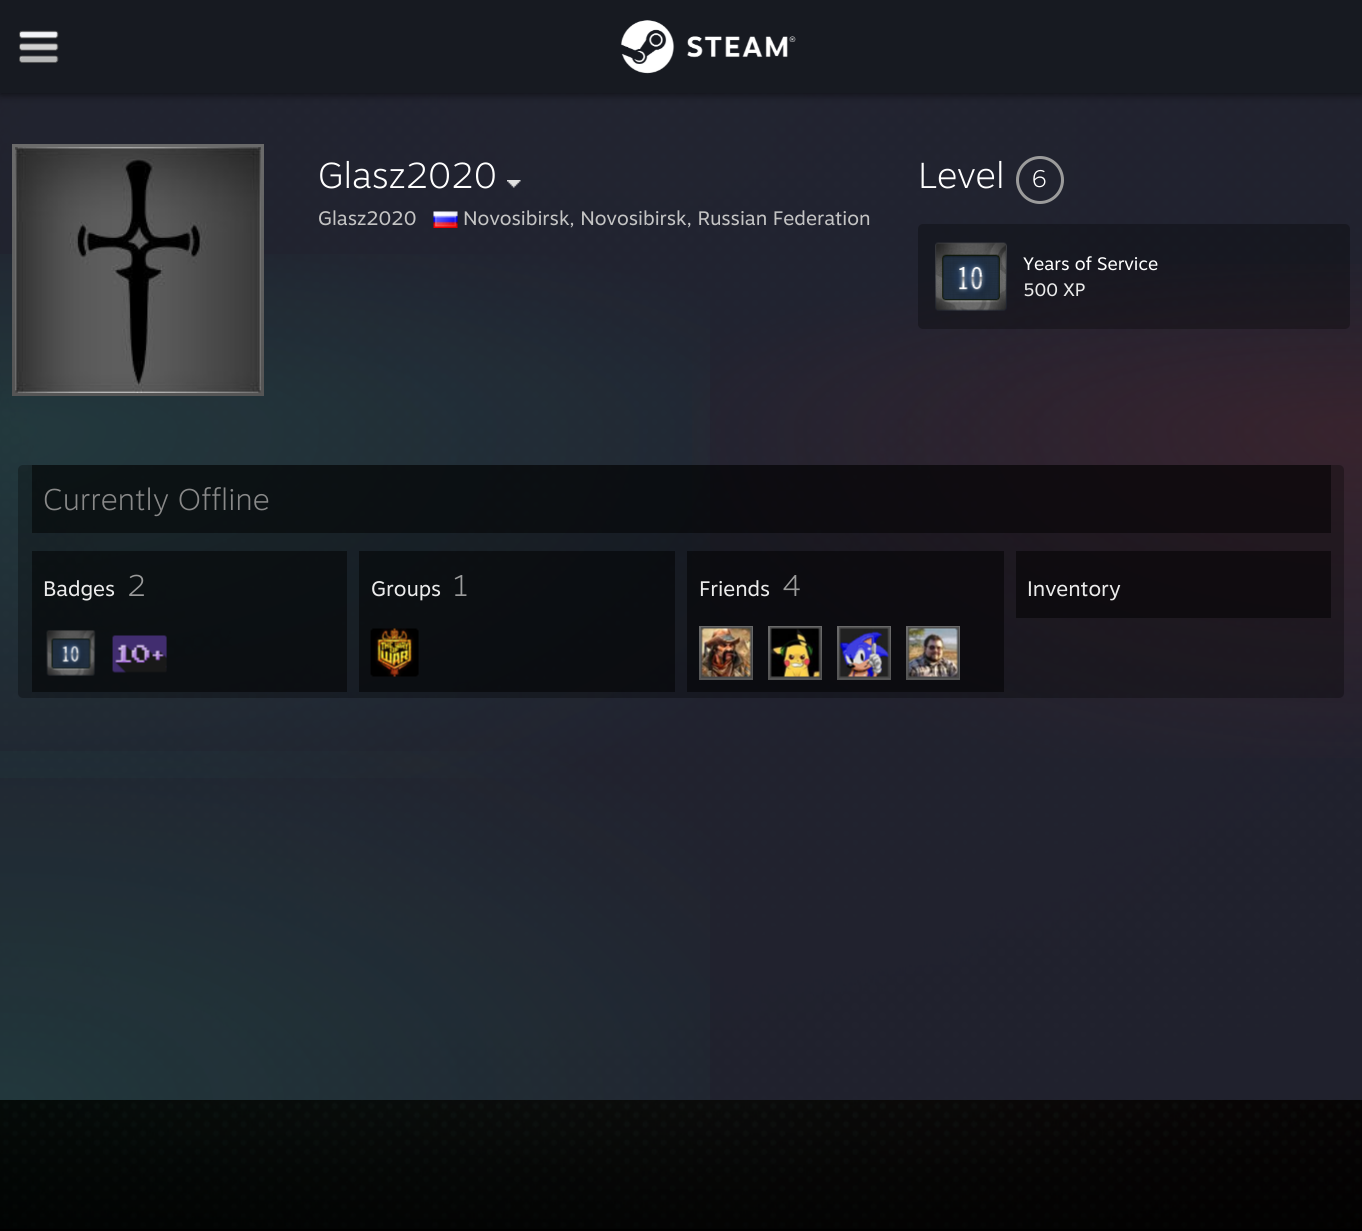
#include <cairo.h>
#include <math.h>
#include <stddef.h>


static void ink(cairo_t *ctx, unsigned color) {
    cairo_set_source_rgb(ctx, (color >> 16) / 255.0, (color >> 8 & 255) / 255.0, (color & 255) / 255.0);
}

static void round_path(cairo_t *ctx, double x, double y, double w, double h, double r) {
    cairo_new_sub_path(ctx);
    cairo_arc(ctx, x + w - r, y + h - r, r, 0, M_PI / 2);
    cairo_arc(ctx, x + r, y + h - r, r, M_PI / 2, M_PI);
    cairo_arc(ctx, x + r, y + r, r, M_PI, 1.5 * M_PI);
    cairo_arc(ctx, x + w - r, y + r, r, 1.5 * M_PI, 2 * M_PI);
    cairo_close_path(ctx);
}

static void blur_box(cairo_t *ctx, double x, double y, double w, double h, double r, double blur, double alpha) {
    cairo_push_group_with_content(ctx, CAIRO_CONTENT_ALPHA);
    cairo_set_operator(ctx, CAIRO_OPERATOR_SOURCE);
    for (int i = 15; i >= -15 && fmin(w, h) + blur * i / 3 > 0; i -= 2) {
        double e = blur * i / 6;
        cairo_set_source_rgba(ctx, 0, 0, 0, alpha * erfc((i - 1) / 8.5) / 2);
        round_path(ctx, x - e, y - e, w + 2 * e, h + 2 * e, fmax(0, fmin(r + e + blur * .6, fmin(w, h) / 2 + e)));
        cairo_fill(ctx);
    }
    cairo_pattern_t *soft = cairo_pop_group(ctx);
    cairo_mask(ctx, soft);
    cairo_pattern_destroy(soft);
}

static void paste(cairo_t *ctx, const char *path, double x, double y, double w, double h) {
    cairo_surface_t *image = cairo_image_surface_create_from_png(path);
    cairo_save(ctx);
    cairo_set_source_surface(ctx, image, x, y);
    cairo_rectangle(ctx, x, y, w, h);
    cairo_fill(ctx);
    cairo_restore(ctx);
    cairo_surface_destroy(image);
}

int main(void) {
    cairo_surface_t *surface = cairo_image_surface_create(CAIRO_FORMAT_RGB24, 1362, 1231);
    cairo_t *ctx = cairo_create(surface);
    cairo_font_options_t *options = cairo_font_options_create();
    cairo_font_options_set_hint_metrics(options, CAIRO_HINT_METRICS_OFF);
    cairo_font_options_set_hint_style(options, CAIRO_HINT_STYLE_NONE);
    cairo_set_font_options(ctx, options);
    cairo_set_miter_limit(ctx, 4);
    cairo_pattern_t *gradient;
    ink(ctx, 0x000000);
    cairo_paint(ctx);
    paste(ctx, "media/1.png", 0, 1100, 1362, 129);
    paste(ctx, "media/4.png", 0, 93, 1362, 1007);
    cairo_set_source_rgba(ctx, 0.133, 0.137, 0.188, 0.93);
    cairo_rectangle(ctx, 0, 93, 1362, 336);
    cairo_fill(ctx);
    ink(ctx, 0x000000);
    blur_box(ctx, 0, 0, 1362, 93, 0, 5, 0.75);
    ink(ctx, 0x171A21);
    cairo_rectangle(ctx, 0, 0, 1362, 93);
    cairo_fill(ctx);
    paste(ctx, "media/2.png", 19, 30, 40, 33);
    paste(ctx, "media/3.png", 621, 20, 175, 54);
    gradient = cairo_pattern_create_radial(0, 0, 0, 0, 0, 1);
    cairo_pattern_set_matrix(gradient, &(cairo_matrix_t){1.0 / 1926, 0, 0, 1.0 / 475, -1.0 * 0 / 1926, -1.0 * 429 / 475});
    cairo_pattern_add_color_stop_rgba(gradient, 0, 0.196, 1, 0.757, 0.1);
    cairo_pattern_add_color_stop_rgba(gradient, 0.47, 0.196, 1, 0.757, 0);
    cairo_set_source(ctx, gradient);
    cairo_pattern_destroy(gradient);
    cairo_rectangle(ctx, 0, 254, 710, 175);
    cairo_fill(ctx);
    gradient = cairo_pattern_create_radial(0, 0, 0, 0, 0, 1);
    cairo_pattern_set_matrix(gradient, &(cairo_matrix_t){1.0 / 1362, 0, 0, 1.0 / 336, -1.0 * 1362 / 1362, -1.0 * 429 / 336});
    cairo_pattern_add_color_stop_rgba(gradient, 0, 0.427, 0.149, 0.173, 0.3);
    cairo_pattern_add_color_stop_rgba(gradient, 0.55, 0.427, 0.149, 0.173, 0);
    cairo_set_source(ctx, gradient);
    cairo_pattern_destroy(gradient);
    cairo_rectangle(ctx, 692, 264, 670, 165);
    cairo_fill(ctx);
    gradient = cairo_pattern_create_linear(138, 144, 138, 396);
    cairo_pattern_add_color_stop_rgba(gradient, 0.05, 0.416, 0.416, 0.416, 1);
    cairo_pattern_add_color_stop_rgba(gradient, 0.95, 0.333, 0.333, 0.333, 1);
    cairo_set_source(ctx, gradient);
    cairo_pattern_destroy(gradient);
    cairo_rectangle(ctx, 12, 144, 252, 252);
    cairo_fill(ctx);
    paste(ctx, "media/5.png", 15, 147, 246, 246);
    cairo_select_font_face(ctx, "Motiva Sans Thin", CAIRO_FONT_SLANT_NORMAL, CAIRO_FONT_WEIGHT_NORMAL);
    cairo_set_font_size(ctx, 36);
    ink(ctx, 0xFFFFFF);
    cairo_move_to(ctx, 318, 188);
    cairo_show_text(ctx, "Glasz2020");
    paste(ctx, "media/6.png", 507, 180, 14, 8);
    cairo_select_font_face(ctx, "Motiva Sans", CAIRO_FONT_SLANT_NORMAL, CAIRO_FONT_WEIGHT_NORMAL);
    cairo_set_font_size(ctx, 19.5);
    ink(ctx, 0xC4C4C4);
    cairo_move_to(ctx, 318, 225);
    cairo_show_text(ctx, "Glasz2020");
    paste(ctx, "media/7.png", 433, 211, 25, 17);
    cairo_move_to(ctx, 463, 225);
    cairo_show_text(ctx, "Novosibirsk, Novosibirsk, Russian Federation");
    cairo_select_font_face(ctx, "Motiva Sans Thin", CAIRO_FONT_SLANT_NORMAL, CAIRO_FONT_WEIGHT_NORMAL);
    cairo_set_font_size(ctx, 36);
    ink(ctx, 0xFFFFFF);
    cairo_move_to(ctx, 918, 188);
    cairo_show_text(ctx, "Level");
    cairo_new_path(ctx);
    cairo_arc(ctx, 1040, 180, 22.5, 0, 2 * M_PI);
    ink(ctx, 0x9B9B9B);
    cairo_set_line_width(ctx, 3);
    cairo_stroke(ctx);
    cairo_set_font_size(ctx, 24);
    ink(ctx, 0xFFFFFF);
    cairo_move_to(ctx, 1032, 187);
    cairo_show_text(ctx, "6");
    cairo_set_source_rgba(ctx, 0, 0, 0, 0.3);
    round_path(ctx, 918, 224, 432, 105, 5);
    cairo_fill(ctx);
    paste(ctx, "media/8.png", 935, 242, 72, 69);
    cairo_select_font_face(ctx, "Motiva Sans", CAIRO_FONT_SLANT_NORMAL, CAIRO_FONT_WEIGHT_NORMAL);
    cairo_set_font_size(ctx, 18);
    ink(ctx, 0xFFFFFF);
    cairo_move_to(ctx, 1023, 270);
    cairo_show_text(ctx, "Years of Service");
    ink(ctx, 0xEBEBEB);
    cairo_move_to(ctx, 1023, 296);
    cairo_show_text(ctx, "500 XP");
    cairo_set_source_rgba(ctx, 0.133, 0.137, 0.188, 0.93);
    cairo_rectangle(ctx, 0, 429, 1362, 671);
    cairo_fill(ctx);
    gradient = cairo_pattern_create_radial(0, 0, 0, 0, 0, 1);
    cairo_pattern_set_matrix(gradient, &(cairo_matrix_t){1.0 / 1926, 0, 0, 1.0 / 948, -1.0 * 0 / 1926, -1.0 * 1100 / 948});
    cairo_pattern_add_color_stop_rgba(gradient, 0, 0.196, 1, 0.757, 0.1);
    cairo_pattern_add_color_stop_rgba(gradient, 0.47, 0.196, 1, 0.757, 0);
    cairo_set_source(ctx, gradient);
    cairo_pattern_destroy(gradient);
    cairo_rectangle(ctx, 0, 751, 710, 349);
    cairo_fill(ctx);
    gradient = cairo_pattern_create_radial(0, 0, 0, 0, 0, 1);
    cairo_pattern_set_matrix(gradient, &(cairo_matrix_t){1.0 / 1926, 0, 0, 1.0 / 948, -1.0 * 0 / 1926, -1.0 * 429 / 948});
    cairo_pattern_add_color_stop_rgba(gradient, 0, 0.196, 1, 0.757, 0.1);
    cairo_pattern_add_color_stop_rgba(gradient, 0.47, 0.196, 1, 0.757, 0);
    cairo_set_source(ctx, gradient);
    cairo_pattern_destroy(gradient);
    cairo_rectangle(ctx, 0, 429, 710, 349);
    cairo_fill(ctx);
    gradient = cairo_pattern_create_radial(0, 0, 0, 0, 0, 1);
    cairo_pattern_set_matrix(gradient, &(cairo_matrix_t){1.0 / 1362, 0, 0, 1.0 / 671, -1.0 * 1362 / 1362, -1.0 * 429 / 671});
    cairo_pattern_add_color_stop_rgba(gradient, 0, 0.427, 0.149, 0.173, 0.3);
    cairo_pattern_add_color_stop_rgba(gradient, 0.55, 0.427, 0.149, 0.173, 0);
    cairo_set_source(ctx, gradient);
    cairo_pattern_destroy(gradient);
    cairo_rectangle(ctx, 692, 429, 670, 329);
    cairo_fill(ctx);
    cairo_set_source_rgba(ctx, 0, 0, 0, 0.3);
    round_path(ctx, 18, 465, 1326, 233, 5);
    cairo_fill(ctx);
    cairo_set_source_rgba(ctx, 0, 0, 0, 0.5);
    cairo_rectangle(ctx, 32, 465, 1299, 68);
    cairo_fill(ctx);
    cairo_select_font_face(ctx, "Motiva Sans Thin", CAIRO_FONT_SLANT_NORMAL, CAIRO_FONT_WEIGHT_NORMAL);
    cairo_set_font_size(ctx, 30);
    ink(ctx, 0x898989);
    cairo_move_to(ctx, 43, 510);
    cairo_show_text(ctx, "Currently Offline");
    cairo_set_source_rgba(ctx, 0, 0, 0, 0.5);
    cairo_rectangle(ctx, 32, 551, 315, 141);
    cairo_fill(ctx);
    cairo_select_font_face(ctx, "Motiva Sans", CAIRO_FONT_SLANT_NORMAL, CAIRO_FONT_WEIGHT_NORMAL);
    cairo_set_font_size(ctx, 21);
    ink(ctx, 0xEBEBEB);
    cairo_move_to(ctx, 43, 596);
    cairo_show_text(ctx, "Badges");
    cairo_select_font_face(ctx, "Motiva Sans Thin", CAIRO_FONT_SLANT_NORMAL, CAIRO_FONT_WEIGHT_NORMAL);
    cairo_set_font_size(ctx, 30);
    ink(ctx, 0x9B9B9B);
    cairo_move_to(ctx, 127, 596);
    cairo_show_text(ctx, "2");
    paste(ctx, "media/9.png", 46, 630, 50, 46);
    paste(ctx, "media/10.png", 112, 635, 55, 38);
    cairo_set_source_rgba(ctx, 0, 0, 0, 0.5);
    cairo_rectangle(ctx, 359, 551, 316, 141);
    cairo_fill(ctx);
    cairo_select_font_face(ctx, "Motiva Sans", CAIRO_FONT_SLANT_NORMAL, CAIRO_FONT_WEIGHT_NORMAL);
    cairo_set_font_size(ctx, 21);
    ink(ctx, 0xEBEBEB);
    cairo_move_to(ctx, 371, 596);
    cairo_show_text(ctx, "Groups");
    cairo_select_font_face(ctx, "Motiva Sans Thin", CAIRO_FONT_SLANT_NORMAL, CAIRO_FONT_WEIGHT_NORMAL);
    cairo_set_font_size(ctx, 30);
    ink(ctx, 0x9B9B9B);
    cairo_move_to(ctx, 453, 596);
    cairo_show_text(ctx, "1");
    paste(ctx, "media/11.png", 370, 628, 49, 49);
    cairo_set_source_rgba(ctx, 0, 0, 0, 0.5);
    cairo_rectangle(ctx, 687, 551, 317, 141);
    cairo_fill(ctx);
    cairo_select_font_face(ctx, "Motiva Sans", CAIRO_FONT_SLANT_NORMAL, CAIRO_FONT_WEIGHT_NORMAL);
    cairo_set_font_size(ctx, 21);
    ink(ctx, 0xEBEBEB);
    cairo_move_to(ctx, 699, 596);
    cairo_show_text(ctx, "Friends");
    cairo_select_font_face(ctx, "Motiva Sans Thin", CAIRO_FONT_SLANT_NORMAL, CAIRO_FONT_WEIGHT_NORMAL);
    cairo_set_font_size(ctx, 30);
    ink(ctx, 0x9B9B9B);
    cairo_move_to(ctx, 782, 596);
    cairo_show_text(ctx, "4");
    gradient = cairo_pattern_create_linear(726, 626, 726, 680);
    cairo_pattern_add_color_stop_rgba(gradient, 0.05, 0.416, 0.416, 0.416, 1);
    cairo_pattern_add_color_stop_rgba(gradient, 0.95, 0.333, 0.333, 0.333, 1);
    cairo_set_source(ctx, gradient);
    cairo_pattern_destroy(gradient);
    cairo_rectangle(ctx, 699, 626, 54, 54);
    cairo_fill(ctx);
    gradient = cairo_pattern_create_linear(726, 627, 726, 678);
    cairo_pattern_add_color_stop_rgba(gradient, 0.05, 0.318, 0.318, 0.318, 1);
    cairo_pattern_add_color_stop_rgba(gradient, 0.95, 0.278, 0.278, 0.278, 1);
    cairo_set_source(ctx, gradient);
    cairo_pattern_destroy(gradient);
    cairo_rectangle(ctx, 701, 627, 51, 51);
    cairo_fill(ctx);
    paste(ctx, "media/12.png", 701, 628, 50, 49);
    gradient = cairo_pattern_create_linear(795, 626, 795, 680);
    cairo_pattern_add_color_stop_rgba(gradient, 0.05, 0.416, 0.416, 0.416, 1);
    cairo_pattern_add_color_stop_rgba(gradient, 0.95, 0.333, 0.333, 0.333, 1);
    cairo_set_source(ctx, gradient);
    cairo_pattern_destroy(gradient);
    cairo_rectangle(ctx, 768, 626, 54, 54);
    cairo_fill(ctx);
    gradient = cairo_pattern_create_linear(795, 627, 795, 678);
    cairo_pattern_add_color_stop_rgba(gradient, 0.05, 0.318, 0.318, 0.318, 1);
    cairo_pattern_add_color_stop_rgba(gradient, 0.95, 0.278, 0.278, 0.278, 1);
    cairo_set_source(ctx, gradient);
    cairo_pattern_destroy(gradient);
    cairo_rectangle(ctx, 770, 627, 51, 51);
    cairo_fill(ctx);
    paste(ctx, "media/13.png", 770, 628, 50, 49);
    gradient = cairo_pattern_create_linear(864, 626, 864, 680);
    cairo_pattern_add_color_stop_rgba(gradient, 0.05, 0.416, 0.416, 0.416, 1);
    cairo_pattern_add_color_stop_rgba(gradient, 0.95, 0.333, 0.333, 0.333, 1);
    cairo_set_source(ctx, gradient);
    cairo_pattern_destroy(gradient);
    cairo_rectangle(ctx, 837, 626, 54, 54);
    cairo_fill(ctx);
    gradient = cairo_pattern_create_linear(864, 627, 864, 678);
    cairo_pattern_add_color_stop_rgba(gradient, 0.05, 0.318, 0.318, 0.318, 1);
    cairo_pattern_add_color_stop_rgba(gradient, 0.95, 0.278, 0.278, 0.278, 1);
    cairo_set_source(ctx, gradient);
    cairo_pattern_destroy(gradient);
    cairo_rectangle(ctx, 839, 627, 51, 51);
    cairo_fill(ctx);
    paste(ctx, "media/14.png", 839, 628, 50, 49);
    gradient = cairo_pattern_create_linear(933, 626, 933, 680);
    cairo_pattern_add_color_stop_rgba(gradient, 0.05, 0.416, 0.416, 0.416, 1);
    cairo_pattern_add_color_stop_rgba(gradient, 0.95, 0.333, 0.333, 0.333, 1);
    cairo_set_source(ctx, gradient);
    cairo_pattern_destroy(gradient);
    cairo_rectangle(ctx, 906, 626, 54, 54);
    cairo_fill(ctx);
    gradient = cairo_pattern_create_linear(933, 627, 933, 678);
    cairo_pattern_add_color_stop_rgba(gradient, 0.05, 0.318, 0.318, 0.318, 1);
    cairo_pattern_add_color_stop_rgba(gradient, 0.95, 0.278, 0.278, 0.278, 1);
    cairo_set_source(ctx, gradient);
    cairo_pattern_destroy(gradient);
    cairo_rectangle(ctx, 908, 627, 51, 51);
    cairo_fill(ctx);
    paste(ctx, "media/15.png", 908, 628, 50, 49);
    cairo_set_source_rgba(ctx, 0, 0, 0, 0.5);
    cairo_rectangle(ctx, 1016, 551, 315, 67);
    cairo_fill(ctx);
    cairo_select_font_face(ctx, "Motiva Sans", CAIRO_FONT_SLANT_NORMAL, CAIRO_FONT_WEIGHT_NORMAL);
    cairo_set_font_size(ctx, 21);
    ink(ctx, 0xEBEBEB);
    cairo_move_to(ctx, 1027, 596);
    cairo_show_text(ctx, "Inventory");
    cairo_surface_write_to_png(surface, "image.png");
    cairo_font_options_destroy(options);
    cairo_destroy(ctx);
    cairo_surface_destroy(surface);
    return 0;
}
